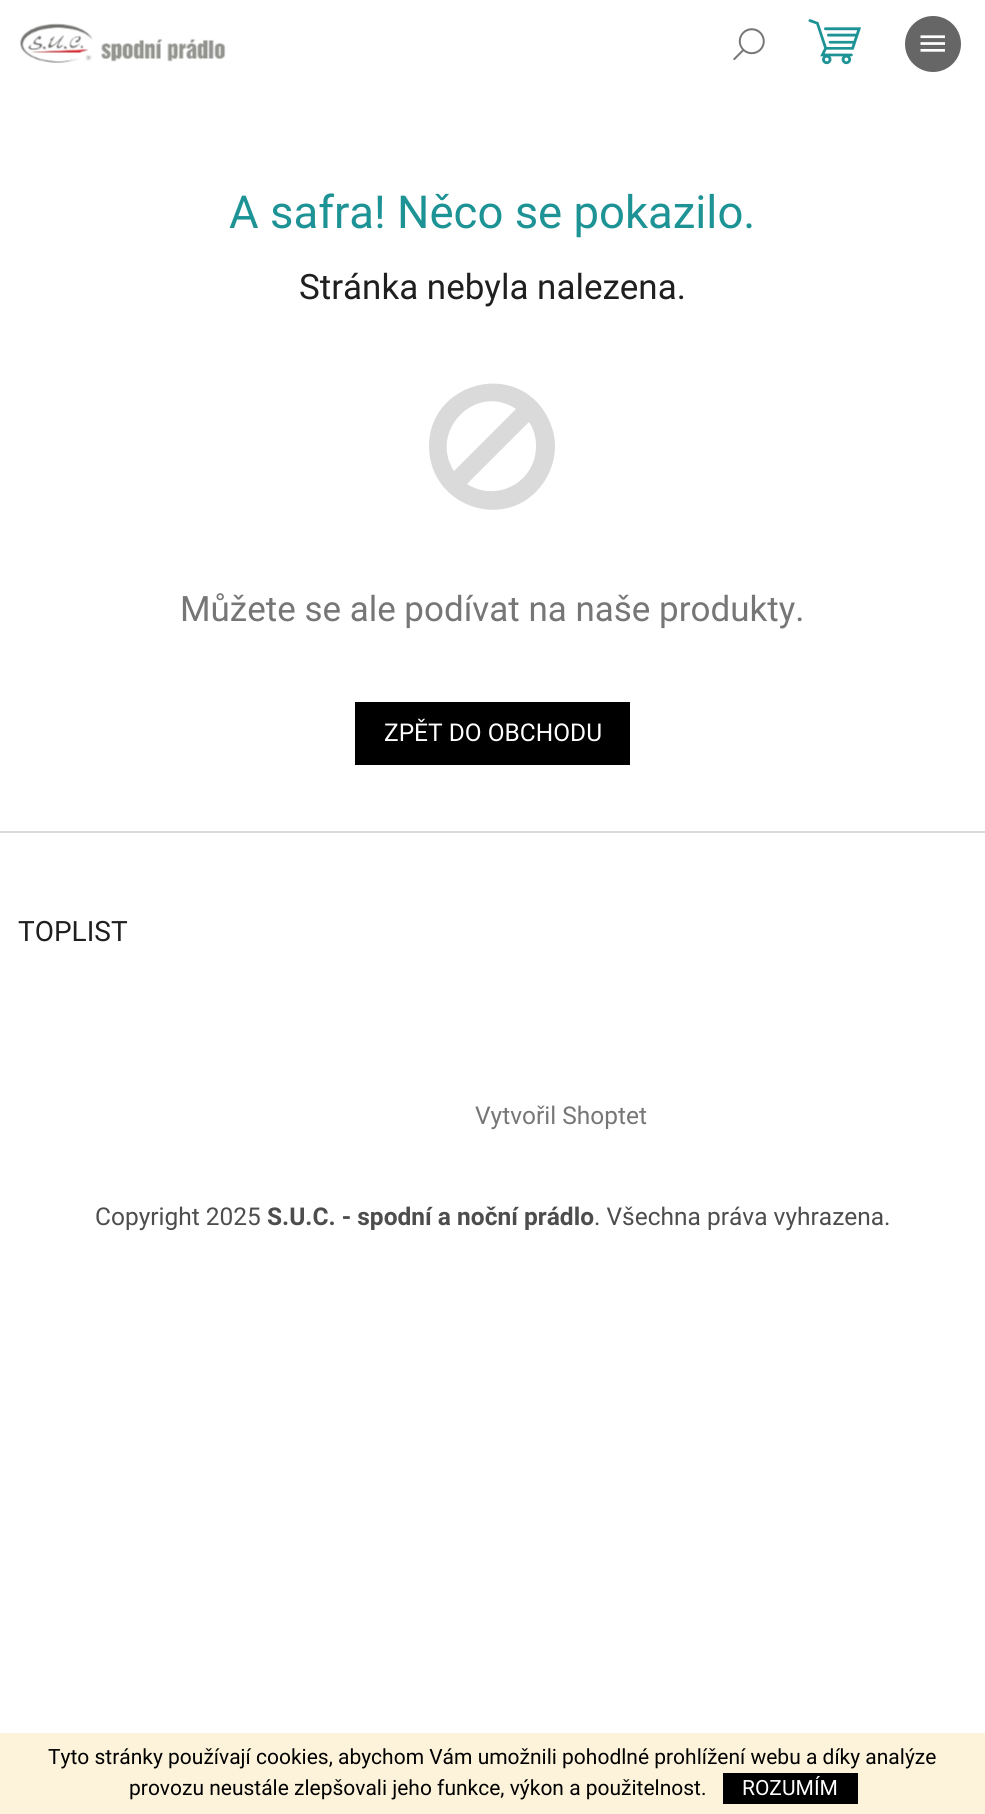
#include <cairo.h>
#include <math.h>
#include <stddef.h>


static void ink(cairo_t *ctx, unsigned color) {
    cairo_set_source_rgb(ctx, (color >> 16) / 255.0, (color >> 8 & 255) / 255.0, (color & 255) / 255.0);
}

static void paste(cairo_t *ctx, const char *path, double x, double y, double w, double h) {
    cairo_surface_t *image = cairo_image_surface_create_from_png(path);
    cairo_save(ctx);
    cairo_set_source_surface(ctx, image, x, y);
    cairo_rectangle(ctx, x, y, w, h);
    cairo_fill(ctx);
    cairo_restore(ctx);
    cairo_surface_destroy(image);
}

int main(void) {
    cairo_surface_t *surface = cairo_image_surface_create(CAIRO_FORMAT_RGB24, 985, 1814);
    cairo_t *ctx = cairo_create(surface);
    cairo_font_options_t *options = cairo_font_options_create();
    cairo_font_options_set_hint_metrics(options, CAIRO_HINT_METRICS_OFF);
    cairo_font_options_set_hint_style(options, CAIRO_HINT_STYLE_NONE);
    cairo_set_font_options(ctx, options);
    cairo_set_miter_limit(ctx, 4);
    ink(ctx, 0xFFFFFF);
    cairo_paint(ctx);
    paste(ctx, "media/1.png", 733, 28, 32, 33);
    ink(ctx, 0x666666);
    cairo_arc(ctx, 933, 44, 28, 0, 2 * M_PI);
    cairo_fill(ctx);
    paste(ctx, "media/2.png", 920, 35, 25, 17);
    paste(ctx, "media/3.png", 20, 23, 206, 40);
    paste(ctx, "media/4.png", 808, 19, 53, 46);
    cairo_select_font_face(ctx, "Roboto", CAIRO_FONT_SLANT_NORMAL, CAIRO_FONT_WEIGHT_NORMAL);
    cairo_set_font_size(ctx, 45.5);
    ink(ctx, 0x1D9395);
    cairo_move_to(ctx, 229, 228);
    cairo_show_text(ctx, "A safra! Něco se pokazilo.");
    cairo_set_font_size(ctx, 35);
    ink(ctx, 0x1F1F1F);
    cairo_move_to(ctx, 299, 299);
    cairo_show_text(ctx, "Stránka nebyla nalezena.");
    ink(ctx, 0xDADADA);
    cairo_new_path(ctx);
    cairo_move_to(ctx, 536, 446);
    cairo_curve_to(ctx, 536, 438, 534, 429, 529, 422);
    cairo_line_to(ctx, 467, 484);
    cairo_curve_to(ctx, 497, 503, 536, 482, 536, 446);
    cairo_close_path(ctx);
    cairo_move_to(ctx, 454, 471);
    cairo_line_to(ctx, 516, 409);
    cairo_curve_to(ctx, 476, 382, 428, 431, 454, 471);
    cairo_close_path(ctx);
    cairo_move_to(ctx, 555, 446);
    cairo_curve_to(ctx, 555, 459, 551, 471, 544, 482);
    cairo_curve_to(ctx, 509, 534, 429, 508, 429, 446);
    cairo_curve_to(ctx, 429, 385, 510, 360, 544, 411);
    cairo_curve_to(ctx, 551, 422, 555, 434, 555, 446);
    cairo_close_path(ctx);
    cairo_fill(ctx);
    ink(ctx, 0x767676);
    cairo_move_to(ctx, 180, 621);
    cairo_show_text(ctx, "Můžete se ale podívat na naše produkty.");
    ink(ctx, 0x000000);
    cairo_rectangle(ctx, 355, 702, 275, 63);
    cairo_fill(ctx);
    cairo_set_font_size(ctx, 24.5);
    ink(ctx, 0xFFFFFF);
    cairo_move_to(ctx, 384, 741);
    cairo_show_text(ctx, "ZPĚT DO OBCHODU");
    ink(ctx, 0xDADADA);
    cairo_rectangle(ctx, 0, 831, 985, 2);
    cairo_fill(ctx);
    cairo_set_font_size(ctx, 28);
    ink(ctx, 0x1F1F1F);
    cairo_move_to(ctx, 18, 941);
    cairo_show_text(ctx, "TOPLIST");
    cairo_set_font_size(ctx, 24.5);
    ink(ctx, 0x767676);
    cairo_move_to(ctx, 475, 1124);
    cairo_show_text(ctx, "Vytvořil Shoptet");
    ink(ctx, 0x4D4D4D);
    cairo_move_to(ctx, 95, 1225);
    cairo_show_text(ctx, "Copyright 2025");
    cairo_select_font_face(ctx, "Roboto", CAIRO_FONT_SLANT_NORMAL, CAIRO_FONT_WEIGHT_BOLD);
    cairo_move_to(ctx, 267, 1225);
    cairo_show_text(ctx, "S.U.C. - spodní a noční prádlo");
    cairo_select_font_face(ctx, "Roboto", CAIRO_FONT_SLANT_NORMAL, CAIRO_FONT_WEIGHT_NORMAL);
    cairo_move_to(ctx, 594, 1225);
    cairo_show_text(ctx, ". Všechna práva vyhrazena.");
    ink(ctx, 0xFDF3DA);
    cairo_rectangle(ctx, 0, 1733, 985, 81);
    cairo_fill(ctx);
    cairo_set_font_size(ctx, 21);
    ink(ctx, 0x000000);
    cairo_move_to(ctx, 48, 1764);
    cairo_show_text(ctx, "Tyto stránky používají cookies, abychom Vám umožnili pohodlné prohlížení webu a díky analýze");
    cairo_move_to(ctx, 129, 1795);
    cairo_show_text(ctx, "provozu neustále zlepšovali jeho funkce, výkon a použitelnost.");
    cairo_rectangle(ctx, 723, 1773, 135, 31);
    cairo_fill(ctx);
    ink(ctx, 0xFFFFFF);
    cairo_move_to(ctx, 742, 1795);
    cairo_show_text(ctx, "ROZUMÍM");
    cairo_surface_write_to_png(surface, "image.png");
    cairo_font_options_destroy(options);
    cairo_destroy(ctx);
    cairo_surface_destroy(surface);
    return 0;
}
